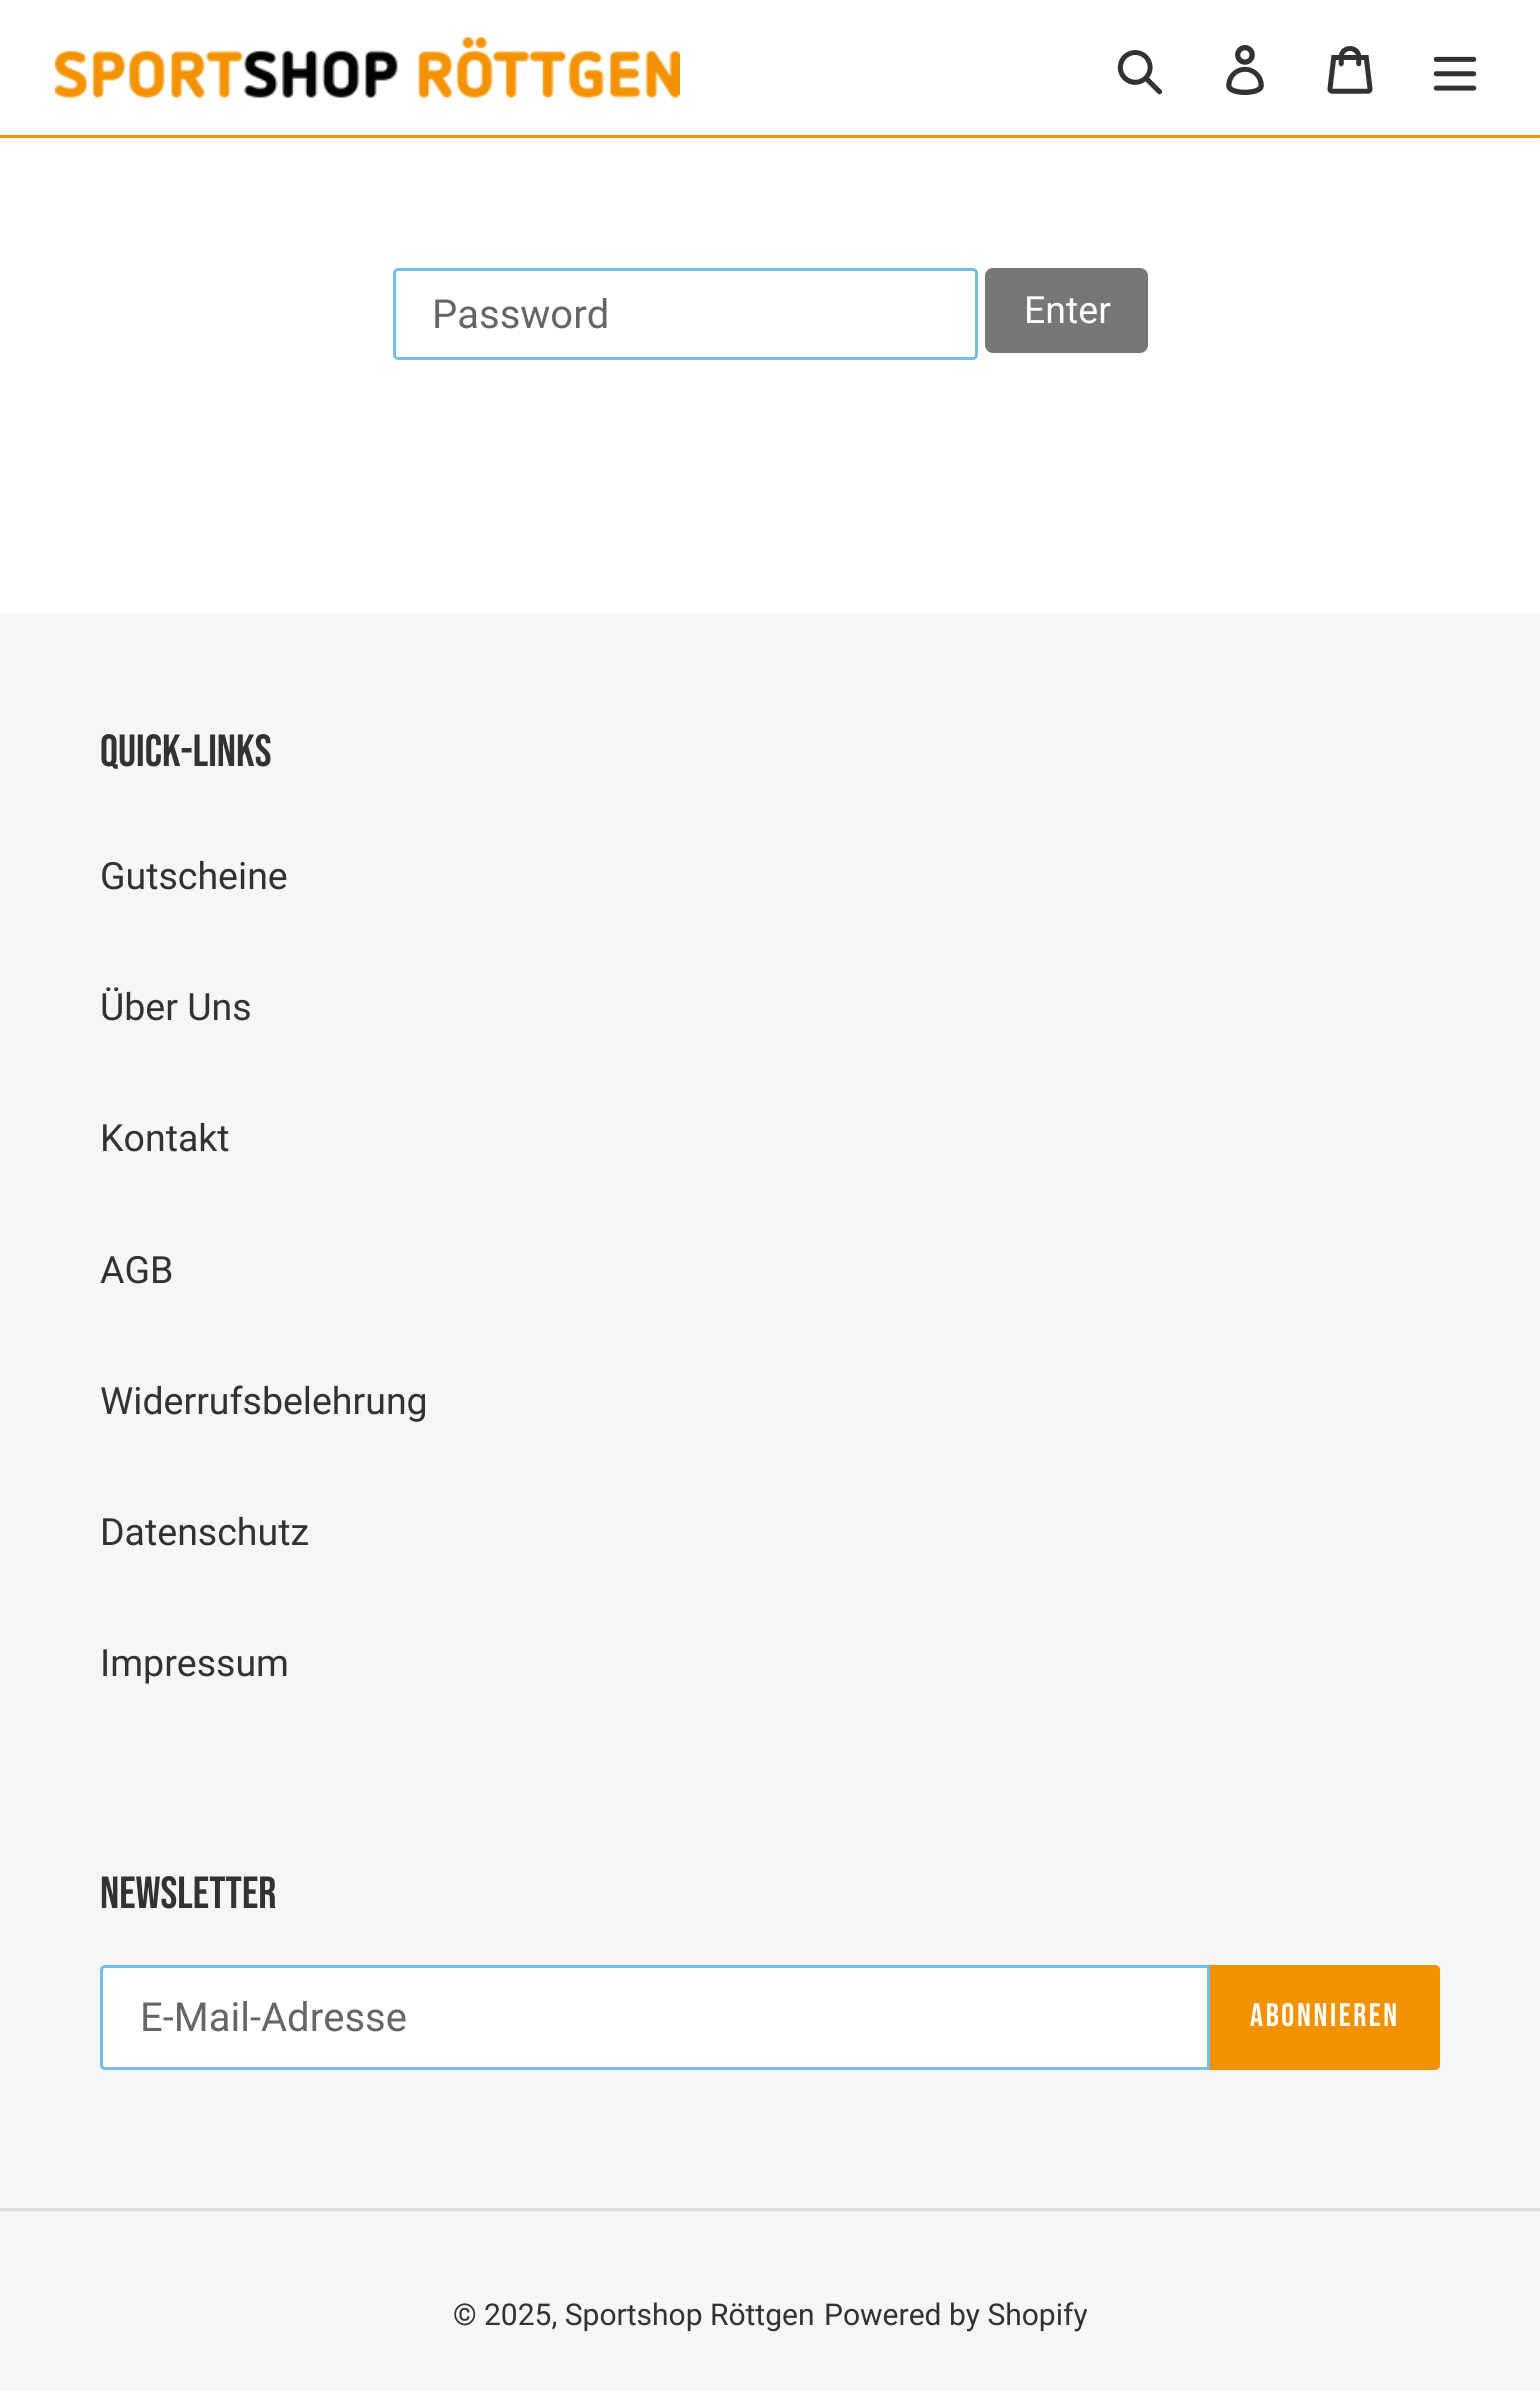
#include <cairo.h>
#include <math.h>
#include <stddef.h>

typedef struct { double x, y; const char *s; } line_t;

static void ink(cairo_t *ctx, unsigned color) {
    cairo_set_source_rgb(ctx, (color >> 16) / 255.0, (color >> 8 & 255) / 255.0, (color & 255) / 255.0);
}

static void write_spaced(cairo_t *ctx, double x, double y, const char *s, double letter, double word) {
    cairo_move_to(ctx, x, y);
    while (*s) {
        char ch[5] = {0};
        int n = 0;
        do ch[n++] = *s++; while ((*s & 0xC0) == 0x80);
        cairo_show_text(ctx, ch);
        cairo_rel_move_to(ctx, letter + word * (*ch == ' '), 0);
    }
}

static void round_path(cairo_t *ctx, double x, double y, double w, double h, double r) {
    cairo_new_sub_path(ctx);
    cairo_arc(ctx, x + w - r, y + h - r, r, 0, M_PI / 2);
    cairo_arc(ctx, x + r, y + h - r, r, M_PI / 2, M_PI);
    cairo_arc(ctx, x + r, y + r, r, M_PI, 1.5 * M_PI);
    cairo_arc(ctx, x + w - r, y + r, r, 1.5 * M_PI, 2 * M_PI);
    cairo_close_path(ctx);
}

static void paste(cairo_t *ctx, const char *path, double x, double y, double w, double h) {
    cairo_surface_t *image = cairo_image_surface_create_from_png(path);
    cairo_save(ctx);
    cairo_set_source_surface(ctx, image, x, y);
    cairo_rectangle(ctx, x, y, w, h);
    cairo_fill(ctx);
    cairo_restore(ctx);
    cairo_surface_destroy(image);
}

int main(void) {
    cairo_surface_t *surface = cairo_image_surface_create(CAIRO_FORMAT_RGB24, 1540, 2391);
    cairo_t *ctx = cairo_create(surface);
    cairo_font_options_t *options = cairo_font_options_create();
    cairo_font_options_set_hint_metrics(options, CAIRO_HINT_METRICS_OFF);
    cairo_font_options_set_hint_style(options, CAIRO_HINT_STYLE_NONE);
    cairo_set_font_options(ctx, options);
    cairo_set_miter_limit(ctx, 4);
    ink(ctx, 0xFFFFFF);
    cairo_paint(ctx);
    ink(ctx, 0xF39200);
    cairo_rectangle(ctx, 0, 135, 1540, 3);
    cairo_fill(ctx);
    paste(ctx, "media/1.png", 55, 37, 625, 61);
    paste(ctx, "media/2.png", 1117, 50, 46, 45);
    paste(ctx, "media/3.png", 1226, 45, 38, 50);
    paste(ctx, "media/4.png", 1327, 46, 46, 48);
    paste(ctx, "media/5.png", 1433, 56, 44, 35);
    round_path(ctx, 394.5, 269.5, 582, 89, 3.5);
    ink(ctx, 0x76BCE9);
    cairo_set_line_width(ctx, 3);
    cairo_stroke(ctx);
    cairo_select_font_face(ctx, "Roboto", CAIRO_FONT_SLANT_NORMAL, CAIRO_FONT_WEIGHT_NORMAL);
    cairo_set_font_size(ctx, 40);
    ink(ctx, 0x666666);
    cairo_move_to(ctx, 432, 328);
    cairo_show_text(ctx, "Password");
    ink(ctx, 0x777777);
    round_path(ctx, 985, 268, 163, 85, 8);
    cairo_fill(ctx);
    cairo_set_font_size(ctx, 37.5);
    ink(ctx, 0xFFFFFF);
    cairo_move_to(ctx, 1024, 323);
    cairo_show_text(ctx, "Enter");
    ink(ctx, 0xF6F6F6);
    cairo_rectangle(ctx, 0, 613, 1540, 1778);
    cairo_fill(ctx);
    cairo_select_font_face(ctx, "Bebas Neue", CAIRO_FONT_SLANT_NORMAL, CAIRO_FONT_WEIGHT_NORMAL);
    cairo_set_font_size(ctx, 45);
    ink(ctx, 0x333232);
    cairo_move_to(ctx, 100, 766);
    cairo_show_text(ctx, "Quick-Links");
    cairo_select_font_face(ctx, "Roboto", CAIRO_FONT_SLANT_NORMAL, CAIRO_FONT_WEIGHT_NORMAL);
    cairo_set_font_size(ctx, 37.5);
    {
        static const line_t items[] = {
            {100, 889, "Gutscheine"},
            {100, 1020, "Über Uns"},
            {100, 1151, "Kontakt"},
            {100, 1283, "AGB"},
            {100, 1414, "Widerrufsbelehrung"},
            {100, 1545, "Datenschutz"},
            {100, 1676, "Impressum"},
        };
        for (size_t i = 0; i < sizeof items / sizeof *items; i++) {
            cairo_move_to(ctx, items[i].x, items[i].y);
            cairo_show_text(ctx, items[i].s);
        }
    }
    cairo_select_font_face(ctx, "Bebas Neue", CAIRO_FONT_SLANT_NORMAL, CAIRO_FONT_WEIGHT_NORMAL);
    cairo_set_font_size(ctx, 45);
    cairo_move_to(ctx, 100, 1908);
    cairo_show_text(ctx, "Newsletter");
    ink(ctx, 0xFFFFFF);
    cairo_new_path(ctx);
    cairo_move_to(ctx, 105, 1966.5);
    cairo_line_to(ctx, 1208.5, 1966.5);
    cairo_line_to(ctx, 1208.5, 2068.5);
    cairo_line_to(ctx, 105, 2068.5);
    cairo_curve_to(ctx, 103, 2068.5, 101.5, 2067, 101.5, 2065);
    cairo_line_to(ctx, 101.5, 1970);
    cairo_curve_to(ctx, 101.5, 1968, 103, 1966.5, 105, 1966.5);
    cairo_close_path(ctx);
    cairo_fill_preserve(ctx);
    ink(ctx, 0x76BCE9);
    cairo_stroke(ctx);
    cairo_select_font_face(ctx, "Roboto", CAIRO_FONT_SLANT_NORMAL, CAIRO_FONT_WEIGHT_NORMAL);
    cairo_set_font_size(ctx, 40);
    ink(ctx, 0x666666);
    cairo_move_to(ctx, 140, 2031);
    cairo_show_text(ctx, "E-Mail-Adresse");
    ink(ctx, 0xF39200);
    cairo_new_path(ctx);
    cairo_move_to(ctx, 1210, 1965);
    cairo_line_to(ctx, 1435, 1965);
    cairo_curve_to(ctx, 1438, 1965, 1440, 1967, 1440, 1970);
    cairo_line_to(ctx, 1440, 2065);
    cairo_curve_to(ctx, 1440, 2068, 1438, 2070, 1435, 2070);
    cairo_line_to(ctx, 1210, 2070);
    cairo_close_path(ctx);
    cairo_fill(ctx);
    cairo_select_font_face(ctx, "Bebas Neue", CAIRO_FONT_SLANT_NORMAL, CAIRO_FONT_WEIGHT_NORMAL);
    cairo_set_font_size(ctx, 32.5);
    ink(ctx, 0xFFFFFF);
    write_spaced(ctx, 1250, 2026, "ABONNIEREN", 2.6, 0);
    ink(ctx, 0xDDDDDD);
    cairo_rectangle(ctx, 0, 2208, 1540, 3);
    cairo_fill(ctx);
    cairo_select_font_face(ctx, "Roboto", CAIRO_FONT_SLANT_NORMAL, CAIRO_FONT_WEIGHT_NORMAL);
    cairo_set_font_size(ctx, 30);
    ink(ctx, 0x333232);
    cairo_move_to(ctx, 453, 2325);
    cairo_show_text(ctx, "© 2025, Sportshop Röttgen");
    cairo_move_to(ctx, 824, 2325);
    cairo_show_text(ctx, "Powered by Shopify");
    cairo_surface_write_to_png(surface, "image.png");
    cairo_font_options_destroy(options);
    cairo_destroy(ctx);
    cairo_surface_destroy(surface);
    return 0;
}
